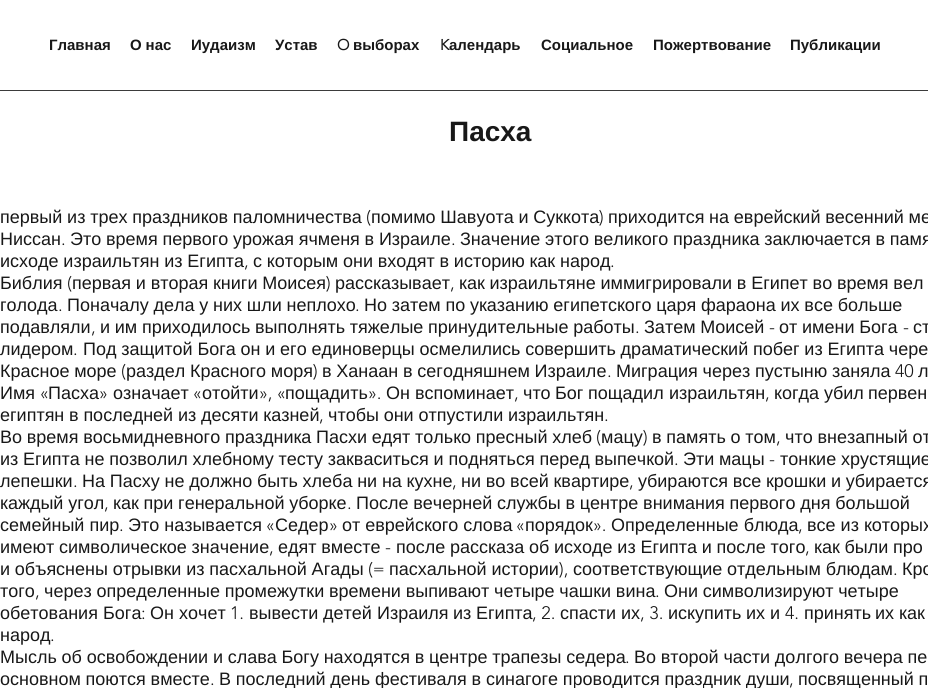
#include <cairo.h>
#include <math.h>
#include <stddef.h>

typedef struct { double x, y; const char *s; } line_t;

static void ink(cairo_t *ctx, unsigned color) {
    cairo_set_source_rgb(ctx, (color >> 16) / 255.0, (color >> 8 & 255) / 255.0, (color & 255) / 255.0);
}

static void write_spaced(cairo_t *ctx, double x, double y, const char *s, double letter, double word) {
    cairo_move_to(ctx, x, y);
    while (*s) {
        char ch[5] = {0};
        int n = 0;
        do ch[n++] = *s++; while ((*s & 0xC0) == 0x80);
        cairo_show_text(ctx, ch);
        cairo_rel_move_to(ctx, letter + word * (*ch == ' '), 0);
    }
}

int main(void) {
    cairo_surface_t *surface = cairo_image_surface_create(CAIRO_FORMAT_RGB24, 928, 688);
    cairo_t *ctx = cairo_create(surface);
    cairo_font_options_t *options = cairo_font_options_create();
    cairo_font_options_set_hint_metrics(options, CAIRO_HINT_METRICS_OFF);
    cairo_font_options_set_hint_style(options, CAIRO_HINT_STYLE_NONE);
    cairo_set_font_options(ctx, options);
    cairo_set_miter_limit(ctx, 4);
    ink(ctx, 0xFFFFFF);
    cairo_paint(ctx);
    cairo_select_font_face(ctx, "Liberation Sans", CAIRO_FONT_SLANT_NORMAL, CAIRO_FONT_WEIGHT_BOLD);
    cairo_set_font_size(ctx, 15);
    ink(ctx, 0x181818);
    cairo_move_to(ctx, 49, 50);
    cairo_show_text(ctx, "Главная");
    write_spaced(ctx, 130, 50, "О нас", 0, -0.25);
    cairo_move_to(ctx, 191, 50);
    cairo_show_text(ctx, "Иудаизм");
    cairo_move_to(ctx, 275, 50);
    cairo_show_text(ctx, "Устав");
    cairo_select_font_face(ctx, "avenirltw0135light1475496", CAIRO_FONT_SLANT_NORMAL, CAIRO_FONT_WEIGHT_BOLD);
    cairo_move_to(ctx, 337, 50);
    cairo_show_text(ctx, "O");
    cairo_select_font_face(ctx, "Liberation Sans", CAIRO_FONT_SLANT_NORMAL, CAIRO_FONT_WEIGHT_BOLD);
    cairo_move_to(ctx, 353, 50);
    cairo_show_text(ctx, "выборах");
    cairo_select_font_face(ctx, "avenirltw0135light1475496", CAIRO_FONT_SLANT_NORMAL, CAIRO_FONT_WEIGHT_BOLD);
    cairo_move_to(ctx, 440, 50);
    cairo_show_text(ctx, "K");
    cairo_select_font_face(ctx, "Liberation Sans", CAIRO_FONT_SLANT_NORMAL, CAIRO_FONT_WEIGHT_BOLD);
    {
        static const line_t items[] = {
            {449, 50, "алендарь"},
            {541, 50, "Социальное"},
            {653, 50, "Пожертвование"},
            {790, 50, "Публикации"},
        };
        for (size_t i = 0; i < sizeof items / sizeof *items; i++) {
            cairo_move_to(ctx, items[i].x, items[i].y);
            cairo_show_text(ctx, items[i].s);
        }
    }
    ink(ctx, 0x3B3B3B);
    cairo_rectangle(ctx, 0, 90, 928, 1);
    cairo_fill(ctx);
    cairo_set_font_size(ctx, 28);
    ink(ctx, 0x181818);
    cairo_move_to(ctx, 449, 141);
    cairo_show_text(ctx, "Пасха");
    cairo_select_font_face(ctx, "Liberation Sans", CAIRO_FONT_SLANT_NORMAL, CAIRO_FONT_WEIGHT_NORMAL);
    cairo_set_font_size(ctx, 18);
    write_spaced(ctx, 0, 223, "первый из трех праздников паломничества", 0, -0.25);
    cairo_select_font_face(ctx, "avenirltw0135light1475496 Light", CAIRO_FONT_SLANT_NORMAL, CAIRO_FONT_WEIGHT_NORMAL);
    cairo_move_to(ctx, 366, 223);
    cairo_show_text(ctx, "(");
    cairo_select_font_face(ctx, "Liberation Sans", CAIRO_FONT_SLANT_NORMAL, CAIRO_FONT_WEIGHT_NORMAL);
    write_spaced(ctx, 371, 223, "помимо Шавуота и Суккота", 0, -0.25);
    cairo_select_font_face(ctx, "avenirltw0135light1475496 Light", CAIRO_FONT_SLANT_NORMAL, CAIRO_FONT_WEIGHT_NORMAL);
    cairo_move_to(ctx, 599, 223);
    cairo_show_text(ctx, ")");
    cairo_select_font_face(ctx, "Liberation Sans", CAIRO_FONT_SLANT_NORMAL, CAIRO_FONT_WEIGHT_NORMAL);
    write_spaced(ctx, 608, 223, "приходится на еврейский весенний ме", 0, -0.25);
    cairo_move_to(ctx, 0, 245);
    cairo_show_text(ctx, "Ниссан");
    cairo_select_font_face(ctx, "avenirltw0135light1475496 Light", CAIRO_FONT_SLANT_NORMAL, CAIRO_FONT_WEIGHT_NORMAL);
    cairo_move_to(ctx, 61, 245);
    cairo_show_text(ctx, ".");
    cairo_select_font_face(ctx, "Liberation Sans", CAIRO_FONT_SLANT_NORMAL, CAIRO_FONT_WEIGHT_NORMAL);
    write_spaced(ctx, 70, 245, "Это время первого урожая ячменя в Израиле", 0, -0.25);
    cairo_select_font_face(ctx, "avenirltw0135light1475496 Light", CAIRO_FONT_SLANT_NORMAL, CAIRO_FONT_WEIGHT_NORMAL);
    cairo_move_to(ctx, 451, 245);
    cairo_show_text(ctx, ".");
    cairo_select_font_face(ctx, "Liberation Sans", CAIRO_FONT_SLANT_NORMAL, CAIRO_FONT_WEIGHT_NORMAL);
    write_spaced(ctx, 460, 245, "Значение этого великого праздника заключается в памя", 0, -0.25);
    write_spaced(ctx, 0, 267, "исходе израильтян из Египта", 0, -0.25);
    cairo_select_font_face(ctx, "avenirltw0135light1475496 Light", CAIRO_FONT_SLANT_NORMAL, CAIRO_FONT_WEIGHT_NORMAL);
    cairo_move_to(ctx, 244, 267);
    cairo_show_text(ctx, ",");
    cairo_select_font_face(ctx, "Liberation Sans", CAIRO_FONT_SLANT_NORMAL, CAIRO_FONT_WEIGHT_NORMAL);
    write_spaced(ctx, 253, 267, "с которым они входят в историю как народ", 0, -0.25);
    cairo_select_font_face(ctx, "avenirltw0135light1475496 Light", CAIRO_FONT_SLANT_NORMAL, CAIRO_FONT_WEIGHT_NORMAL);
    cairo_move_to(ctx, 610, 267);
    cairo_show_text(ctx, ".");
    cairo_select_font_face(ctx, "Liberation Sans", CAIRO_FONT_SLANT_NORMAL, CAIRO_FONT_WEIGHT_NORMAL);
    cairo_move_to(ctx, 0, 289);
    cairo_show_text(ctx, "Библия");
    cairo_select_font_face(ctx, "avenirltw0135light1475496 Light", CAIRO_FONT_SLANT_NORMAL, CAIRO_FONT_WEIGHT_NORMAL);
    cairo_move_to(ctx, 67, 289);
    cairo_show_text(ctx, "(");
    cairo_select_font_face(ctx, "Liberation Sans", CAIRO_FONT_SLANT_NORMAL, CAIRO_FONT_WEIGHT_NORMAL);
    write_spaced(ctx, 72, 289, "первая и вторая книги Моисея", 0, -0.25);
    cairo_select_font_face(ctx, "avenirltw0135light1475496 Light", CAIRO_FONT_SLANT_NORMAL, CAIRO_FONT_WEIGHT_NORMAL);
    cairo_move_to(ctx, 326, 289);
    cairo_show_text(ctx, ")");
    cairo_select_font_face(ctx, "Liberation Sans", CAIRO_FONT_SLANT_NORMAL, CAIRO_FONT_WEIGHT_NORMAL);
    cairo_move_to(ctx, 335, 289);
    cairo_show_text(ctx, "рассказывает");
    cairo_select_font_face(ctx, "avenirltw0135light1475496 Light", CAIRO_FONT_SLANT_NORMAL, CAIRO_FONT_WEIGHT_NORMAL);
    cairo_move_to(ctx, 450, 289);
    cairo_show_text(ctx, ",");
    cairo_select_font_face(ctx, "Liberation Sans", CAIRO_FONT_SLANT_NORMAL, CAIRO_FONT_WEIGHT_NORMAL);
    write_spaced(ctx, 459, 289, "как израильтяне иммигрировали в Египет во время вел", 0, -0.25);
    cairo_move_to(ctx, 0, 311);
    cairo_show_text(ctx, "голода");
    cairo_select_font_face(ctx, "avenirltw0135light1475496 Light", CAIRO_FONT_SLANT_NORMAL, CAIRO_FONT_WEIGHT_NORMAL);
    cairo_move_to(ctx, 58, 311);
    cairo_show_text(ctx, ".");
    cairo_select_font_face(ctx, "Liberation Sans", CAIRO_FONT_SLANT_NORMAL, CAIRO_FONT_WEIGHT_NORMAL);
    write_spaced(ctx, 67, 311, "Поначалу дела у них шли неплохо", 0, -0.25);
    cairo_select_font_face(ctx, "avenirltw0135light1475496 Light", CAIRO_FONT_SLANT_NORMAL, CAIRO_FONT_WEIGHT_NORMAL);
    cairo_move_to(ctx, 355, 311);
    cairo_show_text(ctx, ".");
    cairo_select_font_face(ctx, "Liberation Sans", CAIRO_FONT_SLANT_NORMAL, CAIRO_FONT_WEIGHT_NORMAL);
    write_spaced(ctx, 364, 311, "Но затем по указанию египетского царя фараона их все больше", 0, -0.25);
    cairo_move_to(ctx, 0, 333);
    cairo_show_text(ctx, "подавляли");
    write_spaced(ctx, 100, 333, "и им приходилось выполнять тяжелые принудительные работы", 0, -0.25);
    write_spaced(ctx, 644, 333, "Затем Моисей", 0, -0.25);
    cairo_select_font_face(ctx, "avenirltw0135light1475496 Light", CAIRO_FONT_SLANT_NORMAL, CAIRO_FONT_WEIGHT_NORMAL);
    cairo_move_to(ctx, 769, 333);
    cairo_show_text(ctx, "-");
    cairo_select_font_face(ctx, "Liberation Sans", CAIRO_FONT_SLANT_NORMAL, CAIRO_FONT_WEIGHT_NORMAL);
    write_spaced(ctx, 779, 333, "от имени Бога", 0, -0.25);
    cairo_select_font_face(ctx, "avenirltw0135light1475496 Light", CAIRO_FONT_SLANT_NORMAL, CAIRO_FONT_WEIGHT_NORMAL);
    cairo_move_to(ctx, 903, 333);
    cairo_show_text(ctx, "-");
    cairo_select_font_face(ctx, "Liberation Sans", CAIRO_FONT_SLANT_NORMAL, CAIRO_FONT_WEIGHT_NORMAL);
    write_spaced(ctx, 913, 333, "ст", 0, -0.25);
    cairo_select_font_face(ctx, "avenirltw0135light1475496 Light", CAIRO_FONT_SLANT_NORMAL, CAIRO_FONT_WEIGHT_NORMAL);
    cairo_move_to(ctx, 91, 333);
    cairo_show_text(ctx, ",");
    cairo_move_to(ctx, 635, 333);
    cairo_show_text(ctx, ".");
    cairo_select_font_face(ctx, "Liberation Sans", CAIRO_FONT_SLANT_NORMAL, CAIRO_FONT_WEIGHT_NORMAL);
    cairo_move_to(ctx, 0, 355);
    cairo_show_text(ctx, "лидером");
    cairo_select_font_face(ctx, "avenirltw0135light1475496 Light", CAIRO_FONT_SLANT_NORMAL, CAIRO_FONT_WEIGHT_NORMAL);
    cairo_move_to(ctx, 73, 355);
    cairo_show_text(ctx, ".");
    cairo_select_font_face(ctx, "Liberation Sans", CAIRO_FONT_SLANT_NORMAL, CAIRO_FONT_WEIGHT_NORMAL);
    write_spaced(ctx, 83, 355, "Под защитой Бога он и его единоверцы осмелились совершить драматический побег из Египта чере", 0, -0.25);
    write_spaced(ctx, 0, 377, "Красное море", 0, -0.25);
    cairo_select_font_face(ctx, "avenirltw0135light1475496 Light", CAIRO_FONT_SLANT_NORMAL, CAIRO_FONT_WEIGHT_NORMAL);
    cairo_move_to(ctx, 121, 377);
    cairo_show_text(ctx, "(");
    cairo_select_font_face(ctx, "Liberation Sans", CAIRO_FONT_SLANT_NORMAL, CAIRO_FONT_WEIGHT_NORMAL);
    write_spaced(ctx, 126, 377, "раздел Красного моря", 0, -0.25);
    cairo_select_font_face(ctx, "avenirltw0135light1475496 Light", CAIRO_FONT_SLANT_NORMAL, CAIRO_FONT_WEIGHT_NORMAL);
    cairo_move_to(ctx, 313, 377);
    cairo_show_text(ctx, ")");
    cairo_select_font_face(ctx, "Liberation Sans", CAIRO_FONT_SLANT_NORMAL, CAIRO_FONT_WEIGHT_NORMAL);
    write_spaced(ctx, 322, 377, "в Ханаан в сегодняшнем Израиле", 0, -0.25);
    cairo_select_font_face(ctx, "avenirltw0135light1475496 Light", CAIRO_FONT_SLANT_NORMAL, CAIRO_FONT_WEIGHT_NORMAL);
    cairo_move_to(ctx, 607, 377);
    cairo_show_text(ctx, ".");
    cairo_select_font_face(ctx, "Liberation Sans", CAIRO_FONT_SLANT_NORMAL, CAIRO_FONT_WEIGHT_NORMAL);
    write_spaced(ctx, 616, 377, "Миграция через пустыню заняла", 0, -0.25);
    cairo_select_font_face(ctx, "avenirltw0135light1475496 Light", CAIRO_FONT_SLANT_NORMAL, CAIRO_FONT_WEIGHT_NORMAL);
    cairo_move_to(ctx, 895, 377);
    cairo_show_text(ctx, "40");
    cairo_select_font_face(ctx, "Liberation Sans", CAIRO_FONT_SLANT_NORMAL, CAIRO_FONT_WEIGHT_NORMAL);
    cairo_move_to(ctx, 918, 377);
    cairo_show_text(ctx, "л");
    cairo_move_to(ctx, 0, 399);
    cairo_show_text(ctx, "Имя");
    cairo_select_font_face(ctx, "avenirltw0135light1475496 Light", CAIRO_FONT_SLANT_NORMAL, CAIRO_FONT_WEIGHT_NORMAL);
    cairo_move_to(ctx, 40, 399);
    cairo_show_text(ctx, "«");
    cairo_select_font_face(ctx, "Liberation Sans", CAIRO_FONT_SLANT_NORMAL, CAIRO_FONT_WEIGHT_NORMAL);
    cairo_move_to(ctx, 48, 399);
    cairo_show_text(ctx, "Пасха");
    cairo_select_font_face(ctx, "avenirltw0135light1475496 Light", CAIRO_FONT_SLANT_NORMAL, CAIRO_FONT_WEIGHT_NORMAL);
    cairo_move_to(ctx, 99, 399);
    cairo_show_text(ctx, "»");
    cairo_select_font_face(ctx, "Liberation Sans", CAIRO_FONT_SLANT_NORMAL, CAIRO_FONT_WEIGHT_NORMAL);
    cairo_move_to(ctx, 113, 399);
    cairo_show_text(ctx, "означает");
    cairo_select_font_face(ctx, "avenirltw0135light1475496 Light", CAIRO_FONT_SLANT_NORMAL, CAIRO_FONT_WEIGHT_NORMAL);
    cairo_move_to(ctx, 193, 399);
    cairo_show_text(ctx, "«");
    cairo_select_font_face(ctx, "Liberation Sans", CAIRO_FONT_SLANT_NORMAL, CAIRO_FONT_WEIGHT_NORMAL);
    cairo_move_to(ctx, 202, 399);
    cairo_show_text(ctx, "отойти");
    cairo_select_font_face(ctx, "avenirltw0135light1475496 Light", CAIRO_FONT_SLANT_NORMAL, CAIRO_FONT_WEIGHT_NORMAL);
    cairo_move_to(ctx, 259, 399);
    cairo_show_text(ctx, "», «");
    cairo_select_font_face(ctx, "Liberation Sans", CAIRO_FONT_SLANT_NORMAL, CAIRO_FONT_WEIGHT_NORMAL);
    cairo_move_to(ctx, 285, 399);
    cairo_show_text(ctx, "пощадить");
    cairo_select_font_face(ctx, "avenirltw0135light1475496 Light", CAIRO_FONT_SLANT_NORMAL, CAIRO_FONT_WEIGHT_NORMAL);
    cairo_move_to(ctx, 368, 399);
    cairo_show_text(ctx, "».");
    cairo_select_font_face(ctx, "Liberation Sans", CAIRO_FONT_SLANT_NORMAL, CAIRO_FONT_WEIGHT_NORMAL);
    cairo_move_to(ctx, 386, 399);
    cairo_show_text(ctx, "Он");
    cairo_move_to(ctx, 415, 399);
    cairo_show_text(ctx, "вспоминает");
    cairo_select_font_face(ctx, "avenirltw0135light1475496 Light", CAIRO_FONT_SLANT_NORMAL, CAIRO_FONT_WEIGHT_NORMAL);
    cairo_move_to(ctx, 514, 399);
    cairo_show_text(ctx, ",");
    cairo_select_font_face(ctx, "Liberation Sans", CAIRO_FONT_SLANT_NORMAL, CAIRO_FONT_WEIGHT_NORMAL);
    {
        static const line_t items[] = {
            {523, 399, "что"},
            {555, 399, "Бог"},
            {588, 399, "пощадил"},
            {669, 399, "израильтян"},
        };
        for (size_t i = 0; i < sizeof items / sizeof *items; i++) {
            cairo_move_to(ctx, items[i].x, items[i].y);
            cairo_show_text(ctx, items[i].s);
        }
    }
    cairo_select_font_face(ctx, "avenirltw0135light1475496 Light", CAIRO_FONT_SLANT_NORMAL, CAIRO_FONT_WEIGHT_NORMAL);
    cairo_move_to(ctx, 765, 399);
    cairo_show_text(ctx, ",");
    cairo_select_font_face(ctx, "Liberation Sans", CAIRO_FONT_SLANT_NORMAL, CAIRO_FONT_WEIGHT_NORMAL);
    {
        static const line_t items[] = {
            {774, 399, "когда"},
            {824, 399, "убил"},
            {868, 399, "первен"},
        };
        for (size_t i = 0; i < sizeof items / sizeof *items; i++) {
            cairo_move_to(ctx, items[i].x, items[i].y);
            cairo_show_text(ctx, items[i].s);
        }
    }
    write_spaced(ctx, 0, 421, "египтян в последней из десяти казней", 0, -0.25);
    cairo_select_font_face(ctx, "avenirltw0135light1475496 Light", CAIRO_FONT_SLANT_NORMAL, CAIRO_FONT_WEIGHT_NORMAL);
    cairo_move_to(ctx, 319, 421);
    cairo_show_text(ctx, ",");
    cairo_select_font_face(ctx, "Liberation Sans", CAIRO_FONT_SLANT_NORMAL, CAIRO_FONT_WEIGHT_NORMAL);
    write_spaced(ctx, 328, 421, "чтобы они отпустили израильтян", 0, -0.25);
    cairo_select_font_face(ctx, "avenirltw0135light1475496 Light", CAIRO_FONT_SLANT_NORMAL, CAIRO_FONT_WEIGHT_NORMAL);
    cairo_move_to(ctx, 604, 421);
    cairo_show_text(ctx, ".");
    cairo_select_font_face(ctx, "Liberation Sans", CAIRO_FONT_SLANT_NORMAL, CAIRO_FONT_WEIGHT_NORMAL);
    write_spaced(ctx, 0, 443, "Во время восьмидневного праздника Пасхи едят только пресный хлеб", 0, -0.25);
    cairo_select_font_face(ctx, "avenirltw0135light1475496 Light", CAIRO_FONT_SLANT_NORMAL, CAIRO_FONT_WEIGHT_NORMAL);
    cairo_move_to(ctx, 596, 443);
    cairo_show_text(ctx, "(");
    cairo_select_font_face(ctx, "Liberation Sans", CAIRO_FONT_SLANT_NORMAL, CAIRO_FONT_WEIGHT_NORMAL);
    cairo_move_to(ctx, 601, 443);
    cairo_show_text(ctx, "мацу");
    cairo_select_font_face(ctx, "avenirltw0135light1475496 Light", CAIRO_FONT_SLANT_NORMAL, CAIRO_FONT_WEIGHT_NORMAL);
    cairo_move_to(ctx, 643, 443);
    cairo_show_text(ctx, ")");
    cairo_select_font_face(ctx, "Liberation Sans", CAIRO_FONT_SLANT_NORMAL, CAIRO_FONT_WEIGHT_NORMAL);
    write_spaced(ctx, 652, 443, "в память о том", 0, -0.25);
    cairo_select_font_face(ctx, "avenirltw0135light1475496 Light", CAIRO_FONT_SLANT_NORMAL, CAIRO_FONT_WEIGHT_NORMAL);
    cairo_move_to(ctx, 776, 443);
    cairo_show_text(ctx, ",");
    cairo_select_font_face(ctx, "Liberation Sans", CAIRO_FONT_SLANT_NORMAL, CAIRO_FONT_WEIGHT_NORMAL);
    {
        static const line_t items[] = {
            {785, 443, "что внезапный от"},
            {0, 465, "из Египта не позволил хлебному тесту закваситься и подняться перед выпечкой"},
            {683, 465, "Эти мацы"},
        };
        for (size_t i = 0; i < sizeof items / sizeof *items; i++) {
            write_spaced(ctx, items[i].x, items[i].y, items[i].s, 0, -0.25);
        }
    }
    cairo_select_font_face(ctx, "avenirltw0135light1475496 Light", CAIRO_FONT_SLANT_NORMAL, CAIRO_FONT_WEIGHT_NORMAL);
    cairo_move_to(ctx, 769, 465);
    cairo_show_text(ctx, "-");
    cairo_select_font_face(ctx, "Liberation Sans", CAIRO_FONT_SLANT_NORMAL, CAIRO_FONT_WEIGHT_NORMAL);
    write_spaced(ctx, 780, 465, "тонкие хрустящие", 0, -0.25);
    cairo_select_font_face(ctx, "avenirltw0135light1475496 Light", CAIRO_FONT_SLANT_NORMAL, CAIRO_FONT_WEIGHT_NORMAL);
    cairo_move_to(ctx, 674, 465);
    cairo_show_text(ctx, ".");
    cairo_select_font_face(ctx, "Liberation Sans", CAIRO_FONT_SLANT_NORMAL, CAIRO_FONT_WEIGHT_NORMAL);
    cairo_move_to(ctx, 0, 487);
    cairo_show_text(ctx, "лепешки");
    cairo_select_font_face(ctx, "avenirltw0135light1475496 Light", CAIRO_FONT_SLANT_NORMAL, CAIRO_FONT_WEIGHT_NORMAL);
    cairo_move_to(ctx, 73, 487);
    cairo_show_text(ctx, ".");
    cairo_select_font_face(ctx, "Liberation Sans", CAIRO_FONT_SLANT_NORMAL, CAIRO_FONT_WEIGHT_NORMAL);
    write_spaced(ctx, 82, 487, "На Пасху не должно быть хлеба ни на кухне", 0, -0.25);
    cairo_select_font_face(ctx, "avenirltw0135light1475496 Light", CAIRO_FONT_SLANT_NORMAL, CAIRO_FONT_WEIGHT_NORMAL);
    cairo_move_to(ctx, 452, 487);
    cairo_show_text(ctx, ",");
    cairo_select_font_face(ctx, "Liberation Sans", CAIRO_FONT_SLANT_NORMAL, CAIRO_FONT_WEIGHT_NORMAL);
    write_spaced(ctx, 461, 487, "ни во всей квартире", 0, -0.25);
    cairo_select_font_face(ctx, "avenirltw0135light1475496 Light", CAIRO_FONT_SLANT_NORMAL, CAIRO_FONT_WEIGHT_NORMAL);
    cairo_move_to(ctx, 629, 487);
    cairo_show_text(ctx, ",");
    cairo_select_font_face(ctx, "Liberation Sans", CAIRO_FONT_SLANT_NORMAL, CAIRO_FONT_WEIGHT_NORMAL);
    write_spaced(ctx, 638, 487, "убираются все крошки и убирается", 0, -0.25);
    write_spaced(ctx, 0, 509, "каждый угол", 0, -0.25);
    cairo_select_font_face(ctx, "avenirltw0135light1475496 Light", CAIRO_FONT_SLANT_NORMAL, CAIRO_FONT_WEIGHT_NORMAL);
    cairo_move_to(ctx, 104, 509);
    cairo_show_text(ctx, ",");
    cairo_select_font_face(ctx, "Liberation Sans", CAIRO_FONT_SLANT_NORMAL, CAIRO_FONT_WEIGHT_NORMAL);
    write_spaced(ctx, 113, 509, "как при генеральной уборке", 0, -0.25);
    cairo_select_font_face(ctx, "avenirltw0135light1475496 Light", CAIRO_FONT_SLANT_NORMAL, CAIRO_FONT_WEIGHT_NORMAL);
    cairo_move_to(ctx, 347, 509);
    cairo_show_text(ctx, ".");
    cairo_select_font_face(ctx, "Liberation Sans", CAIRO_FONT_SLANT_NORMAL, CAIRO_FONT_WEIGHT_NORMAL);
    write_spaced(ctx, 356, 509, "После вечерней службы в центре внимания первого дня большой", 0, -0.25);
    cairo_move_to(ctx, 0, 531);
    cairo_show_text(ctx, "семейный пир");
    cairo_select_font_face(ctx, "avenirltw0135light1475496 Light", CAIRO_FONT_SLANT_NORMAL, CAIRO_FONT_WEIGHT_NORMAL);
    cairo_move_to(ctx, 119, 531);
    cairo_show_text(ctx, ".");
    cairo_select_font_face(ctx, "Liberation Sans", CAIRO_FONT_SLANT_NORMAL, CAIRO_FONT_WEIGHT_NORMAL);
    cairo_move_to(ctx, 128, 531);
    cairo_show_text(ctx, "Это называется");
    cairo_select_font_face(ctx, "avenirltw0135light1475496 Light", CAIRO_FONT_SLANT_NORMAL, CAIRO_FONT_WEIGHT_NORMAL);
    cairo_move_to(ctx, 266, 531);
    cairo_show_text(ctx, "«");
    cairo_select_font_face(ctx, "Liberation Sans", CAIRO_FONT_SLANT_NORMAL, CAIRO_FONT_WEIGHT_NORMAL);
    cairo_move_to(ctx, 275, 531);
    cairo_show_text(ctx, "Седер");
    cairo_select_font_face(ctx, "avenirltw0135light1475496 Light", CAIRO_FONT_SLANT_NORMAL, CAIRO_FONT_WEIGHT_NORMAL);
    cairo_move_to(ctx, 329, 531);
    cairo_show_text(ctx, "»");
    cairo_select_font_face(ctx, "Liberation Sans", CAIRO_FONT_SLANT_NORMAL, CAIRO_FONT_WEIGHT_NORMAL);
    cairo_move_to(ctx, 342, 531);
    cairo_show_text(ctx, "от еврейского слова");
    cairo_select_font_face(ctx, "avenirltw0135light1475496 Light", CAIRO_FONT_SLANT_NORMAL, CAIRO_FONT_WEIGHT_NORMAL);
    cairo_move_to(ctx, 516, 531);
    cairo_show_text(ctx, "«");
    cairo_select_font_face(ctx, "Liberation Sans", CAIRO_FONT_SLANT_NORMAL, CAIRO_FONT_WEIGHT_NORMAL);
    cairo_move_to(ctx, 525, 531);
    cairo_show_text(ctx, "порядок");
    cairo_select_font_face(ctx, "avenirltw0135light1475496 Light", CAIRO_FONT_SLANT_NORMAL, CAIRO_FONT_WEIGHT_NORMAL);
    cairo_move_to(ctx, 593, 531);
    cairo_show_text(ctx, "».");
    cairo_select_font_face(ctx, "Liberation Sans", CAIRO_FONT_SLANT_NORMAL, CAIRO_FONT_WEIGHT_NORMAL);
    cairo_move_to(ctx, 611, 531);
    cairo_show_text(ctx, "Определенные блюда");
    cairo_select_font_face(ctx, "avenirltw0135light1475496 Light", CAIRO_FONT_SLANT_NORMAL, CAIRO_FONT_WEIGHT_NORMAL);
    cairo_move_to(ctx, 798, 531);
    cairo_show_text(ctx, ",");
    cairo_select_font_face(ctx, "Liberation Sans", CAIRO_FONT_SLANT_NORMAL, CAIRO_FONT_WEIGHT_NORMAL);
    cairo_move_to(ctx, 807, 531);
    cairo_show_text(ctx, "все из которых");
    write_spaced(ctx, 0, 553, "имеют символическое значение", 0, -0.25);
    write_spaced(ctx, 278, 553, "едят вместе", 0, -0.25);
    cairo_select_font_face(ctx, "avenirltw0135light1475496 Light", CAIRO_FONT_SLANT_NORMAL, CAIRO_FONT_WEIGHT_NORMAL);
    cairo_move_to(ctx, 385, 553);
    cairo_show_text(ctx, "-");
    cairo_select_font_face(ctx, "Liberation Sans", CAIRO_FONT_SLANT_NORMAL, CAIRO_FONT_WEIGHT_NORMAL);
    write_spaced(ctx, 396, 553, "после рассказа об исходе из Египта и после того", 0, -0.25);
    write_spaced(ctx, 814, 553, "как были про", 0, -0.25);
    cairo_select_font_face(ctx, "avenirltw0135light1475496 Light", CAIRO_FONT_SLANT_NORMAL, CAIRO_FONT_WEIGHT_NORMAL);
    cairo_move_to(ctx, 269, 553);
    cairo_show_text(ctx, ",");
    cairo_move_to(ctx, 805, 553);
    cairo_show_text(ctx, ",");
    cairo_select_font_face(ctx, "Liberation Sans", CAIRO_FONT_SLANT_NORMAL, CAIRO_FONT_WEIGHT_NORMAL);
    write_spaced(ctx, 0, 575, "и объяснены отрывки из пасхальной Агады", 0, -0.25);
    cairo_select_font_face(ctx, "avenirltw0135light1475496 Light", CAIRO_FONT_SLANT_NORMAL, CAIRO_FONT_WEIGHT_NORMAL);
    cairo_move_to(ctx, 368, 575);
    cairo_show_text(ctx, "(=");
    cairo_select_font_face(ctx, "Liberation Sans", CAIRO_FONT_SLANT_NORMAL, CAIRO_FONT_WEIGHT_NORMAL);
    write_spaced(ctx, 389, 575, "пасхальной истории", 0, -0.25);
    cairo_select_font_face(ctx, "avenirltw0135light1475496 Light", CAIRO_FONT_SLANT_NORMAL, CAIRO_FONT_WEIGHT_NORMAL);
    cairo_move_to(ctx, 559, 575);
    cairo_show_text(ctx, "),");
    cairo_select_font_face(ctx, "Liberation Sans", CAIRO_FONT_SLANT_NORMAL, CAIRO_FONT_WEIGHT_NORMAL);
    write_spaced(ctx, 573, 575, "соответствующие отдельным блюдам", 0, -0.25);
    cairo_select_font_face(ctx, "avenirltw0135light1475496 Light", CAIRO_FONT_SLANT_NORMAL, CAIRO_FONT_WEIGHT_NORMAL);
    cairo_move_to(ctx, 893, 575);
    cairo_show_text(ctx, ".");
    cairo_select_font_face(ctx, "Liberation Sans", CAIRO_FONT_SLANT_NORMAL, CAIRO_FONT_WEIGHT_NORMAL);
    cairo_move_to(ctx, 902, 575);
    cairo_show_text(ctx, "Кро");
    cairo_move_to(ctx, 0, 597);
    cairo_show_text(ctx, "того");
    cairo_select_font_face(ctx, "avenirltw0135light1475496 Light", CAIRO_FONT_SLANT_NORMAL, CAIRO_FONT_WEIGHT_NORMAL);
    cairo_move_to(ctx, 35, 597);
    cairo_show_text(ctx, ",");
    cairo_select_font_face(ctx, "Liberation Sans", CAIRO_FONT_SLANT_NORMAL, CAIRO_FONT_WEIGHT_NORMAL);
    write_spaced(ctx, 44, 597, "через определенные промежутки времени выпивают четыре чашки вина", 0, -0.25);
    cairo_select_font_face(ctx, "avenirltw0135light1475496 Light", CAIRO_FONT_SLANT_NORMAL, CAIRO_FONT_WEIGHT_NORMAL);
    cairo_move_to(ctx, 655, 597);
    cairo_show_text(ctx, ".");
    cairo_select_font_face(ctx, "Liberation Sans", CAIRO_FONT_SLANT_NORMAL, CAIRO_FONT_WEIGHT_NORMAL);
    write_spaced(ctx, 664, 597, "Они символизируют четыре", 0, -0.25);
    cairo_move_to(ctx, 0, 619);
    cairo_show_text(ctx, "обетования");
    cairo_move_to(ctx, 103, 619);
    cairo_show_text(ctx, "Бога");
    cairo_select_font_face(ctx, "avenirltw0135light1475496 Light", CAIRO_FONT_SLANT_NORMAL, CAIRO_FONT_WEIGHT_NORMAL);
    cairo_move_to(ctx, 141, 619);
    cairo_show_text(ctx, ":");
    cairo_select_font_face(ctx, "Liberation Sans", CAIRO_FONT_SLANT_NORMAL, CAIRO_FONT_WEIGHT_NORMAL);
    cairo_move_to(ctx, 150, 619);
    cairo_show_text(ctx, "Он");
    cairo_move_to(ctx, 179, 619);
    cairo_show_text(ctx, "хочет");
    cairo_select_font_face(ctx, "avenirltw0135light1475496 Light", CAIRO_FONT_SLANT_NORMAL, CAIRO_FONT_WEIGHT_NORMAL);
    cairo_move_to(ctx, 230, 619);
    cairo_show_text(ctx, "1.");
    cairo_select_font_face(ctx, "Liberation Sans", CAIRO_FONT_SLANT_NORMAL, CAIRO_FONT_WEIGHT_NORMAL);
    {
        static const line_t items[] = {
            {249, 619, "вывести"},
            {323, 619, "детей"},
            {377, 619, "Израиля"},
            {453, 619, "из"},
            {476, 619, "Египта"},
        };
        for (size_t i = 0; i < sizeof items / sizeof *items; i++) {
            cairo_move_to(ctx, items[i].x, items[i].y);
            cairo_show_text(ctx, items[i].s);
        }
    }
    cairo_select_font_face(ctx, "avenirltw0135light1475496 Light", CAIRO_FONT_SLANT_NORMAL, CAIRO_FONT_WEIGHT_NORMAL);
    cairo_move_to(ctx, 532, 619);
    cairo_show_text(ctx, ", 2.");
    cairo_select_font_face(ctx, "Liberation Sans", CAIRO_FONT_SLANT_NORMAL, CAIRO_FONT_WEIGHT_NORMAL);
    cairo_move_to(ctx, 560, 619);
    cairo_show_text(ctx, "спасти");
    cairo_move_to(ctx, 621, 619);
    cairo_show_text(ctx, "их");
    cairo_select_font_face(ctx, "avenirltw0135light1475496 Light", CAIRO_FONT_SLANT_NORMAL, CAIRO_FONT_WEIGHT_NORMAL);
    cairo_move_to(ctx, 640, 619);
    cairo_show_text(ctx, ", 3.");
    cairo_select_font_face(ctx, "Liberation Sans", CAIRO_FONT_SLANT_NORMAL, CAIRO_FONT_WEIGHT_NORMAL);
    {
        static const line_t items[] = {
            {668, 619, "искупить"},
            {746, 619, "их"},
            {770, 619, "и"},
        };
        for (size_t i = 0; i < sizeof items / sizeof *items; i++) {
            cairo_move_to(ctx, items[i].x, items[i].y);
            cairo_show_text(ctx, items[i].s);
        }
    }
    cairo_select_font_face(ctx, "avenirltw0135light1475496 Light", CAIRO_FONT_SLANT_NORMAL, CAIRO_FONT_WEIGHT_NORMAL);
    cairo_move_to(ctx, 785, 619);
    cairo_show_text(ctx, "4.");
    cairo_select_font_face(ctx, "Liberation Sans", CAIRO_FONT_SLANT_NORMAL, CAIRO_FONT_WEIGHT_NORMAL);
    {
        static const line_t items[] = {
            {804, 619, "принять"},
            {875, 619, "их"},
            {899, 619, "как"},
            {0, 641, "народ"},
        };
        for (size_t i = 0; i < sizeof items / sizeof *items; i++) {
            cairo_move_to(ctx, items[i].x, items[i].y);
            cairo_show_text(ctx, items[i].s);
        }
    }
    cairo_select_font_face(ctx, "avenirltw0135light1475496 Light", CAIRO_FONT_SLANT_NORMAL, CAIRO_FONT_WEIGHT_NORMAL);
    cairo_move_to(ctx, 50, 641);
    cairo_show_text(ctx, ".");
    cairo_select_font_face(ctx, "Liberation Sans", CAIRO_FONT_SLANT_NORMAL, CAIRO_FONT_WEIGHT_NORMAL);
    write_spaced(ctx, 0, 663, "Мысль об освобождении и слава Богу находятся в центре трапезы седера", 0, -0.25);
    cairo_select_font_face(ctx, "avenirltw0135light1475496 Light", CAIRO_FONT_SLANT_NORMAL, CAIRO_FONT_WEIGHT_NORMAL);
    cairo_move_to(ctx, 625, 663);
    cairo_show_text(ctx, ".");
    cairo_select_font_face(ctx, "Liberation Sans", CAIRO_FONT_SLANT_NORMAL, CAIRO_FONT_WEIGHT_NORMAL);
    write_spaced(ctx, 634, 663, "Во второй части долгого вечера пе", 0, -0.25);
    write_spaced(ctx, 0, 685, "основном поются вместе", 0, -0.25);
    cairo_select_font_face(ctx, "avenirltw0135light1475496 Light", CAIRO_FONT_SLANT_NORMAL, CAIRO_FONT_WEIGHT_NORMAL);
    cairo_move_to(ctx, 210, 685);
    cairo_show_text(ctx, ".");
    cairo_select_font_face(ctx, "Liberation Sans", CAIRO_FONT_SLANT_NORMAL, CAIRO_FONT_WEIGHT_NORMAL);
    write_spaced(ctx, 219, 685, "В последний день фестиваля в синагоге проводится праздник души", 0, -0.25);
    cairo_select_font_face(ctx, "avenirltw0135light1475496 Light", CAIRO_FONT_SLANT_NORMAL, CAIRO_FONT_WEIGHT_NORMAL);
    cairo_move_to(ctx, 789, 685);
    cairo_show_text(ctx, ",");
    cairo_select_font_face(ctx, "Liberation Sans", CAIRO_FONT_SLANT_NORMAL, CAIRO_FONT_WEIGHT_NORMAL);
    write_spaced(ctx, 798, 685, "посвященный п", 0, -0.25);
    cairo_surface_write_to_png(surface, "image.png");
    cairo_font_options_destroy(options);
    cairo_destroy(ctx);
    cairo_surface_destroy(surface);
    return 0;
}
